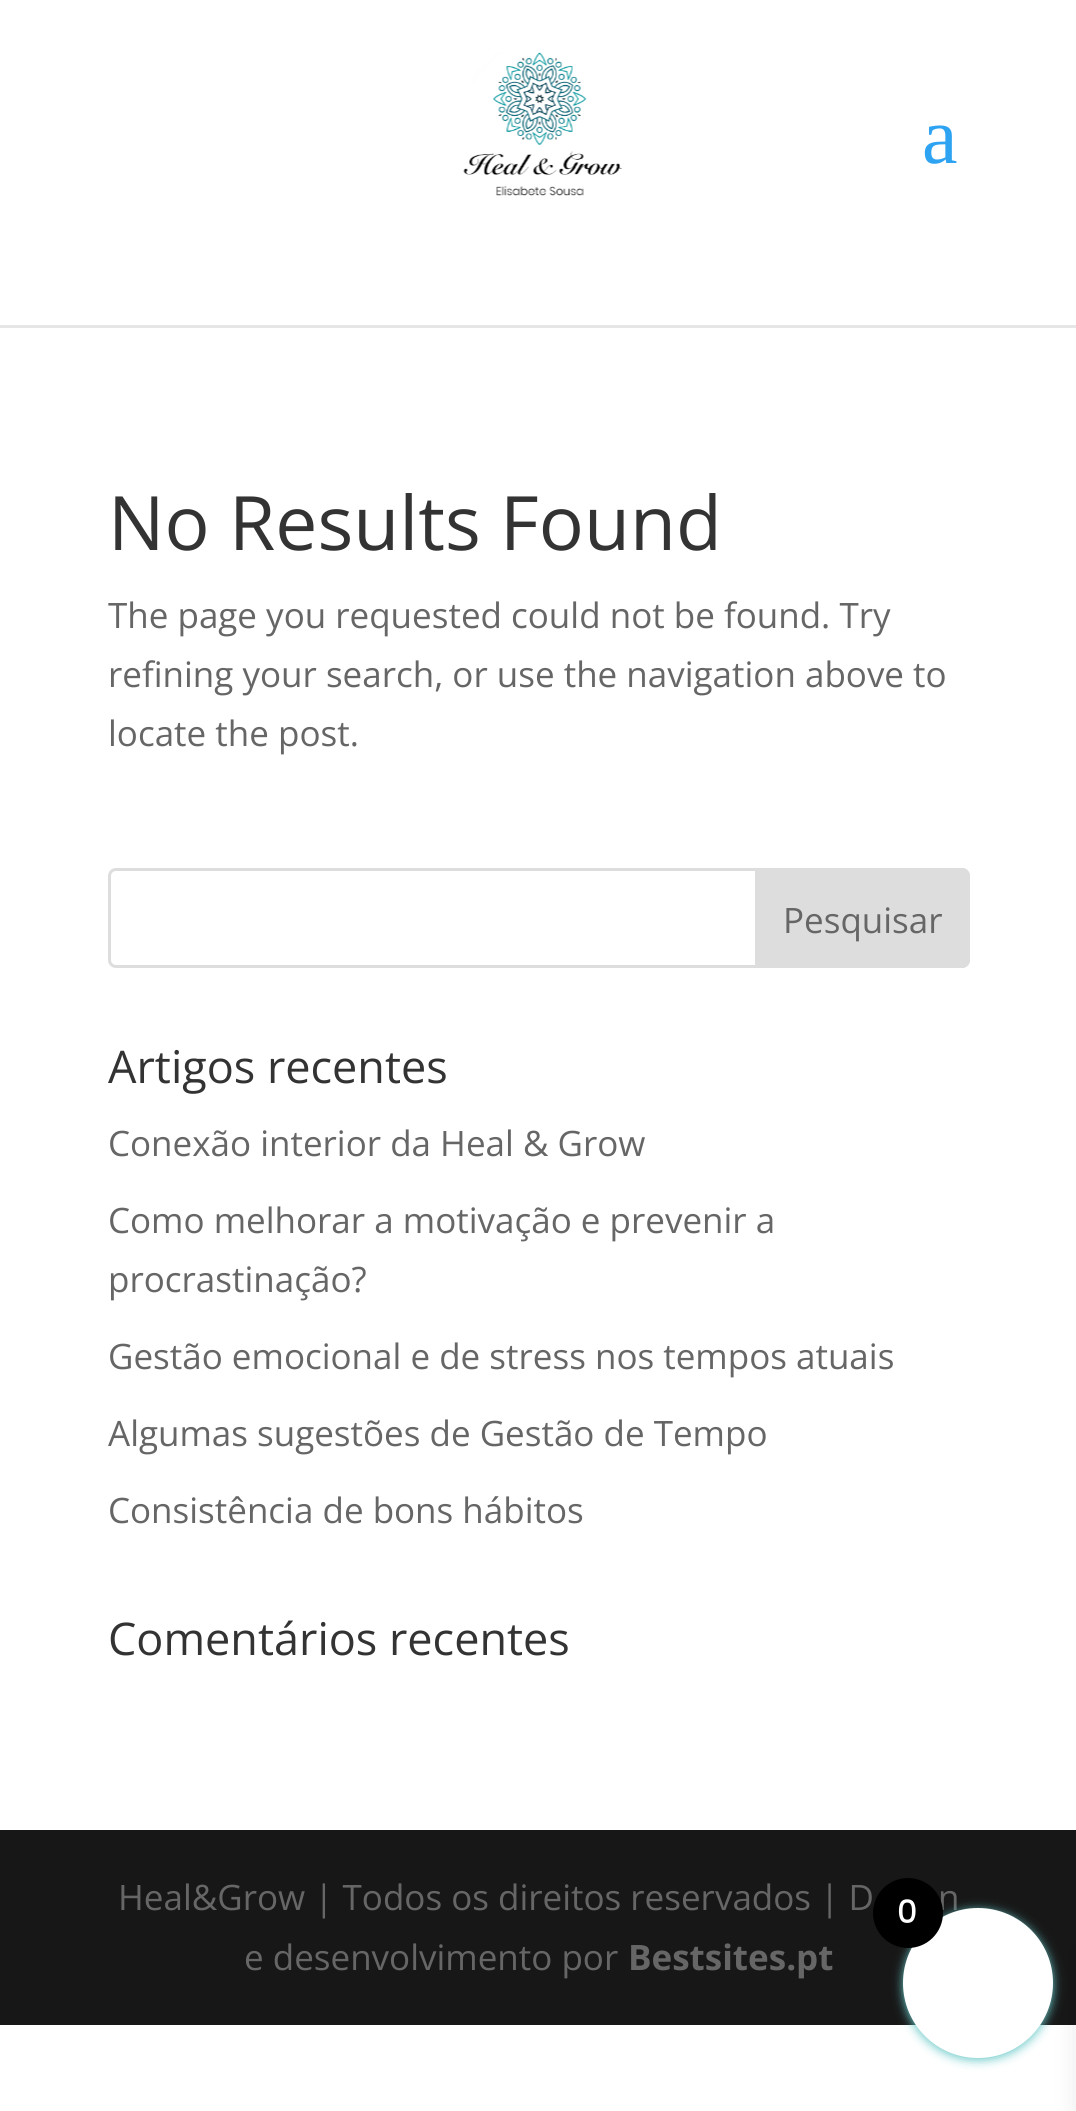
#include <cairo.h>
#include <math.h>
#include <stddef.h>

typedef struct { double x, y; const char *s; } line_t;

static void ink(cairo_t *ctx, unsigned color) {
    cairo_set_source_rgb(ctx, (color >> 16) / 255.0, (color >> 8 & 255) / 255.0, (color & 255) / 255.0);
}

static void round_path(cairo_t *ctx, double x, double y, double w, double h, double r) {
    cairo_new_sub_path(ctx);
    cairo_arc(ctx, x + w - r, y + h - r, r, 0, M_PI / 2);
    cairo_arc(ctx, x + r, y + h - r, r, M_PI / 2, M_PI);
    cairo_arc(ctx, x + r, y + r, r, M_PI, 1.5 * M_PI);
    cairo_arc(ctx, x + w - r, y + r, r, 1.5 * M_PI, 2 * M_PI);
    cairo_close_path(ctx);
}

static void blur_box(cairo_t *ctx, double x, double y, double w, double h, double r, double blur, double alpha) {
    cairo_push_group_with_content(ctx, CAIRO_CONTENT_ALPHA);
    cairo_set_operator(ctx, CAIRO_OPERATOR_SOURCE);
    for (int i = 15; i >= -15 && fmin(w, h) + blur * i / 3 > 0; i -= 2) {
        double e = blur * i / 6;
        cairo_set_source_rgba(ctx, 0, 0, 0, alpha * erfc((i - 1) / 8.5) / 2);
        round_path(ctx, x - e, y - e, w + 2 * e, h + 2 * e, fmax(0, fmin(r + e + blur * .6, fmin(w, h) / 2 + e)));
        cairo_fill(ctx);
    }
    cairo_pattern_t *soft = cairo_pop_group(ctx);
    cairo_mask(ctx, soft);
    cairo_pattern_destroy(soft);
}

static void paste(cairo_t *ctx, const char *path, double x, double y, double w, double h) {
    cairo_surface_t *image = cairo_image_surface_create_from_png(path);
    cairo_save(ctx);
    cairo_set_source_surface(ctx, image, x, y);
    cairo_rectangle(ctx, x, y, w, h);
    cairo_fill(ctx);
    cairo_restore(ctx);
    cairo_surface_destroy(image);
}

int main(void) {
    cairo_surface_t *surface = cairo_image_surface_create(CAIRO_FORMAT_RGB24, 1076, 2111);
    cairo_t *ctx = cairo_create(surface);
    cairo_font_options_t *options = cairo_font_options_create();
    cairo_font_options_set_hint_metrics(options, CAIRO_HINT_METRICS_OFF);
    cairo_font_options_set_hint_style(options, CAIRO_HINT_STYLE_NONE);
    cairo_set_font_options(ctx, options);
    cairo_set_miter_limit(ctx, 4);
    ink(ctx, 0xFFFFFF);
    cairo_paint(ctx);
    ink(ctx, 0xE6E6E6);
    cairo_new_path(ctx);
    cairo_move_to(ctx, 0, 325);
    cairo_line_to(ctx, 0, 328);
    cairo_line_to(ctx, 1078, 328);
    cairo_line_to(ctx, 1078, 3);
    cairo_line_to(ctx, 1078, 325);
    cairo_close_path(ctx);
    cairo_fill(ctx);
    paste(ctx, "media/1.png", 463, 52, 159, 144);
    cairo_select_font_face(ctx, "Liberation Serif", CAIRO_FONT_SLANT_NORMAL, CAIRO_FONT_WEIGHT_NORMAL);
    cairo_set_font_size(ctx, 80);
    ink(ctx, 0x2EA3F2);
    cairo_move_to(ctx, 922, 163);
    cairo_show_text(ctx, "a");
    cairo_select_font_face(ctx, "Open Sans", CAIRO_FONT_SLANT_NORMAL, CAIRO_FONT_WEIGHT_NORMAL);
    cairo_set_font_size(ctx, 75);
    ink(ctx, 0x333333);
    cairo_move_to(ctx, 108, 550);
    cairo_show_text(ctx, "No Results Found");
    cairo_set_font_size(ctx, 35);
    ink(ctx, 0x666666);
    {
        static const line_t items[] = {
            {108, 628, "The page you requested could not be found. Try"},
            {108, 687, "refining your search, or use the navigation above to"},
            {108, 746, "locate the post."},
        };
        for (size_t i = 0; i < sizeof items / sizeof *items; i++) {
            cairo_move_to(ctx, items[i].x, items[i].y);
            cairo_show_text(ctx, items[i].s);
        }
    }
    round_path(ctx, 109.5, 869.5, 859, 97, 6.5);
    ink(ctx, 0xDDDDDD);
    cairo_set_line_width(ctx, 3);
    cairo_stroke(ctx);
    cairo_new_path(ctx);
    cairo_move_to(ctx, 756.5, 869.5);
    cairo_line_to(ctx, 962, 869.5);
    cairo_curve_to(ctx, 965.5, 869.5, 968.5, 872.5, 968.5, 876);
    cairo_line_to(ctx, 968.5, 960);
    cairo_curve_to(ctx, 968.5, 963.5, 965.5, 966.5, 962, 966.5);
    cairo_line_to(ctx, 756.5, 966.5);
    cairo_close_path(ctx);
    cairo_fill_preserve(ctx);
    cairo_stroke(ctx);
    ink(ctx, 0x666666);
    cairo_move_to(ctx, 783, 933);
    cairo_show_text(ctx, "Pesquisar");
    cairo_set_font_size(ctx, 45);
    ink(ctx, 0x333333);
    cairo_move_to(ctx, 108, 1083);
    cairo_show_text(ctx, "Artigos recentes");
    cairo_set_font_size(ctx, 35);
    ink(ctx, 0x666666);
    {
        static const line_t items[] = {
            {108, 1156, "Conexão interior da Heal & Grow"},
            {108, 1233, "Como melhorar a motivação e prevenir a"},
            {108, 1292, "procrastinação?"},
            {108, 1369, "Gestão emocional e de stress nos tempos atuais"},
            {108, 1446, "Algumas sugestões de Gestão de Tempo"},
            {108, 1523, "Consistência de bons hábitos"},
        };
        for (size_t i = 0; i < sizeof items / sizeof *items; i++) {
            cairo_move_to(ctx, items[i].x, items[i].y);
            cairo_show_text(ctx, items[i].s);
        }
    }
    cairo_set_font_size(ctx, 45);
    ink(ctx, 0x333333);
    cairo_move_to(ctx, 108, 1655);
    cairo_show_text(ctx, "Comentários recentes");
    ink(ctx, 0x171717);
    cairo_rectangle(ctx, 0, 1830, 1076, 195);
    cairo_fill(ctx);
    cairo_set_font_size(ctx, 35);
    ink(ctx, 0x666666);
    {
        static const line_t items[] = {
            {118, 1910, "Heal&Grow | Todos os direitos reservados | D"},
            {938, 1910, "n"},
            {244, 1970, "e desenvolvimento por"},
        };
        for (size_t i = 0; i < sizeof items / sizeof *items; i++) {
            cairo_move_to(ctx, items[i].x, items[i].y);
            cairo_show_text(ctx, items[i].s);
        }
    }
    cairo_select_font_face(ctx, "Open Sans", CAIRO_FONT_SLANT_NORMAL, CAIRO_FONT_WEIGHT_BOLD);
    cairo_move_to(ctx, 628, 1970);
    cairo_show_text(ctx, "Bestsites.pt");
    ink(ctx, 0x68C8C7);
    blur_box(ctx, 903, 1910, 150, 150, 75, 5, 1);
    ink(ctx, 0x000000);
    blur_box(ctx, 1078, 1950, 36, 160, 0, 12.5, 0.1);
    ink(ctx, 0xFFFFFF);
    cairo_arc(ctx, 978, 1983, 75, 0, 2 * M_PI);
    cairo_fill(ctx);
    ink(ctx, 0x000000);
    cairo_arc(ctx, 908, 1913, 35, 0, 2 * M_PI);
    cairo_fill(ctx);
    cairo_select_font_face(ctx, "Poppins Medium", CAIRO_FONT_SLANT_NORMAL, CAIRO_FONT_WEIGHT_NORMAL);
    cairo_set_font_size(ctx, 32);
    ink(ctx, 0xFFFFFF);
    cairo_move_to(ctx, 897, 1923);
    cairo_show_text(ctx, "0");
    cairo_surface_write_to_png(surface, "image.png");
    cairo_font_options_destroy(options);
    cairo_destroy(ctx);
    cairo_surface_destroy(surface);
    return 0;
}
